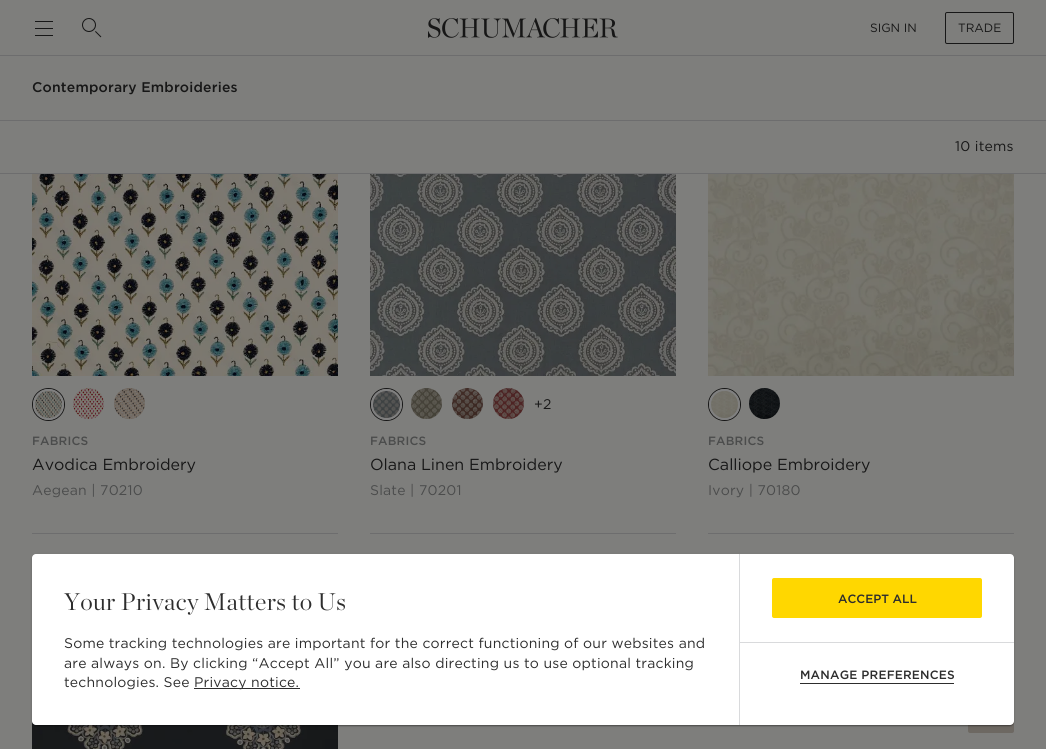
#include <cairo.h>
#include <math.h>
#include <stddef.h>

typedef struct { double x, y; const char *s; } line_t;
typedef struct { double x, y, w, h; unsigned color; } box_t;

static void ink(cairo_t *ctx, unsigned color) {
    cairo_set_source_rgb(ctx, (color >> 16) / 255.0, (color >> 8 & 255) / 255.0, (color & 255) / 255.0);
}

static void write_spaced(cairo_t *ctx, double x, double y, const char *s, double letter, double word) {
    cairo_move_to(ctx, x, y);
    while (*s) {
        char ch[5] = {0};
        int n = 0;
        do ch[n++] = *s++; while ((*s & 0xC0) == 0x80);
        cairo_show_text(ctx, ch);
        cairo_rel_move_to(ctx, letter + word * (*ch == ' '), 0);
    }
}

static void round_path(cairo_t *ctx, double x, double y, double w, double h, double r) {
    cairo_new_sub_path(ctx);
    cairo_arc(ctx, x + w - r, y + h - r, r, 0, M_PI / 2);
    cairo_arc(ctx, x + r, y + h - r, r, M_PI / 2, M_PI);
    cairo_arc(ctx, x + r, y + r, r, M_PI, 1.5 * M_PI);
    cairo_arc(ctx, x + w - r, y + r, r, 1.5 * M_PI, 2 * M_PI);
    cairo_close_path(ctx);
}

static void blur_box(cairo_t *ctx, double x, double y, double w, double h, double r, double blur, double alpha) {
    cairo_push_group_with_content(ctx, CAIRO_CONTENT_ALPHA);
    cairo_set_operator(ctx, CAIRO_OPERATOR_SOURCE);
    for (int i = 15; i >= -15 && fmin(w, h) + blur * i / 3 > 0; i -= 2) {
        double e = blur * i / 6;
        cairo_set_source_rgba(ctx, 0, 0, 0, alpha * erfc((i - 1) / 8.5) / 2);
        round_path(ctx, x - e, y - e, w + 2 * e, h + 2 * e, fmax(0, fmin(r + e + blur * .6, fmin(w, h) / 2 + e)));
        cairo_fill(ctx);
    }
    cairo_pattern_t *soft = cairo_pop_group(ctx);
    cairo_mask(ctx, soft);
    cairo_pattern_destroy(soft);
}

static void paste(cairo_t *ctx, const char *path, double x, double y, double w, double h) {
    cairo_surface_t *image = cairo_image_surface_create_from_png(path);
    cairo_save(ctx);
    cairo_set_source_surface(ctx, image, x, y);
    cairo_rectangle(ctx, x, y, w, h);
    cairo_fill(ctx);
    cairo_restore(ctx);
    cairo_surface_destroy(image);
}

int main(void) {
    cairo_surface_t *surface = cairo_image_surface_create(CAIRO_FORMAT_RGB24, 1046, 749);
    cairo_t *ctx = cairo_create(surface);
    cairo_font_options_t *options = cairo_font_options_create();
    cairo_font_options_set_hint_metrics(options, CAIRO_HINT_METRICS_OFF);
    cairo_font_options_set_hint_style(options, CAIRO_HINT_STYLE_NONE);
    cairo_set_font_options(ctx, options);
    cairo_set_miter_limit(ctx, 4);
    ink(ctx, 0x7E7E7C);
    cairo_paint(ctx);
    {
        static const box_t items[] = {
            {0, 55, 1046, 1, 0x6D6D6E},
            {35, 28, 18, 1, 0x171717},
            {35, 35, 18, 1, 0x171717},
            {35, 21, 18, 1, 0x171717},
        };
        for (size_t i = 0; i < sizeof items / sizeof *items; i++) {
            ink(ctx, items[i].color);
            cairo_rectangle(ctx, items[i].x, items[i].y, items[i].w, items[i].h);
            cairo_fill(ctx);
        }
    }
    paste(ctx, "media/1.png", 82, 18, 20, 20);
    paste(ctx, "media/2.png", 428, 18, 190, 20);
    cairo_select_font_face(ctx, "Gotham", CAIRO_FONT_SLANT_NORMAL, CAIRO_FONT_WEIGHT_NORMAL);
    cairo_set_font_size(ctx, 12);
    cairo_move_to(ctx, 870, 32);
    cairo_show_text(ctx, "SIGN IN");
    round_path(ctx, 945.5, 12.5, 68, 31, 1.5);
    cairo_set_line_width(ctx, 1);
    cairo_stroke(ctx);
    cairo_move_to(ctx, 958, 32);
    cairo_show_text(ctx, "TRADE");
    ink(ctx, 0x6D6D6E);
    cairo_rectangle(ctx, 0, 120, 1046, 1);
    cairo_fill(ctx);
    cairo_select_font_face(ctx, "Gotham Medium", CAIRO_FONT_SLANT_NORMAL, CAIRO_FONT_WEIGHT_NORMAL);
    cairo_set_font_size(ctx, 14);
    ink(ctx, 0x171717);
    write_spaced(ctx, 32, 92, "Contemporary Embroideries", 0.2, 0);
    ink(ctx, 0x6D6D6E);
    cairo_rectangle(ctx, 0, 173, 1046, 1);
    cairo_fill(ctx);
    cairo_select_font_face(ctx, "Gotham", CAIRO_FONT_SLANT_NORMAL, CAIRO_FONT_WEIGHT_NORMAL);
    ink(ctx, 0x171717);
    write_spaced(ctx, 955, 151, "10 items", 0.2, 0);
    paste(ctx, "media/3.png", 32, 174, 306, 202);
    cairo_arc(ctx, 48.5, 404.5, 16, 0, 2 * M_PI);
    cairo_stroke(ctx);
    cairo_arc(ctx, 48.5, 404.5, 14.5, 0, 2 * M_PI);
    ink(ctx, 0x808080);
    cairo_set_line_width(ctx, 2);
    cairo_stroke(ctx);
    paste(ctx, "media/4.png", 35, 391, 27, 27);
    paste(ctx, "media/5.png", 73, 388, 31, 31);
    paste(ctx, "media/6.png", 114, 388, 31, 31);
    cairo_select_font_face(ctx, "Gotham Medium", CAIRO_FONT_SLANT_NORMAL, CAIRO_FONT_WEIGHT_NORMAL);
    cairo_set_font_size(ctx, 12);
    ink(ctx, 0x4B4C4C);
    write_spaced(ctx, 32, 445, "FABRICS", 0.2, 0);
    cairo_select_font_face(ctx, "Gotham", CAIRO_FONT_SLANT_NORMAL, CAIRO_FONT_WEIGHT_NORMAL);
    cairo_set_font_size(ctx, 16);
    ink(ctx, 0x171717);
    cairo_move_to(ctx, 32, 470);
    cairo_show_text(ctx, "Avodica Embroidery");
    cairo_set_font_size(ctx, 14);
    ink(ctx, 0x4B4C4C);
    write_spaced(ctx, 32, 495, "Aegean | 70210", 0.2, 0);
    ink(ctx, 0x6D6D6E);
    cairo_rectangle(ctx, 32, 533, 306, 1);
    cairo_fill(ctx);
    paste(ctx, "media/7.png", 370, 174, 306, 202);
    cairo_arc(ctx, 386.5, 404.5, 16, 0, 2 * M_PI);
    ink(ctx, 0x171717);
    cairo_set_line_width(ctx, 1);
    cairo_stroke(ctx);
    cairo_arc(ctx, 386.5, 404.5, 14.5, 0, 2 * M_PI);
    ink(ctx, 0x808080);
    cairo_set_line_width(ctx, 2);
    cairo_stroke(ctx);
    paste(ctx, "media/8.png", 373, 391, 27, 27);
    paste(ctx, "media/9.png", 411, 388, 31, 31);
    paste(ctx, "media/10.png", 452, 388, 31, 31);
    paste(ctx, "media/11.png", 493, 388, 31, 31);
    ink(ctx, 0x171717);
    write_spaced(ctx, 534, 409, "+2", 0.2, 0);
    cairo_select_font_face(ctx, "Gotham Medium", CAIRO_FONT_SLANT_NORMAL, CAIRO_FONT_WEIGHT_NORMAL);
    cairo_set_font_size(ctx, 12);
    ink(ctx, 0x4B4C4C);
    write_spaced(ctx, 370, 445, "FABRICS", 0.2, 0);
    cairo_select_font_face(ctx, "Gotham", CAIRO_FONT_SLANT_NORMAL, CAIRO_FONT_WEIGHT_NORMAL);
    cairo_set_font_size(ctx, 16);
    ink(ctx, 0x171717);
    cairo_move_to(ctx, 370, 470);
    cairo_show_text(ctx, "Olana Linen Embroidery");
    cairo_set_font_size(ctx, 14);
    ink(ctx, 0x4B4C4C);
    write_spaced(ctx, 370, 495, "Slate | 70201", 0.2, 0);
    ink(ctx, 0x6D6D6E);
    cairo_rectangle(ctx, 370, 533, 306, 1);
    cairo_fill(ctx);
    paste(ctx, "media/12.png", 708, 174, 306, 202);
    cairo_arc(ctx, 724.5, 404.5, 16, 0, 2 * M_PI);
    ink(ctx, 0x171717);
    cairo_set_line_width(ctx, 1);
    cairo_stroke(ctx);
    cairo_arc(ctx, 724.5, 404.5, 14.5, 0, 2 * M_PI);
    ink(ctx, 0x808080);
    cairo_set_line_width(ctx, 2);
    cairo_stroke(ctx);
    paste(ctx, "media/13.png", 711, 391, 27, 27);
    paste(ctx, "media/14.png", 749, 388, 31, 31);
    cairo_select_font_face(ctx, "Gotham Medium", CAIRO_FONT_SLANT_NORMAL, CAIRO_FONT_WEIGHT_NORMAL);
    cairo_set_font_size(ctx, 12);
    ink(ctx, 0x4B4C4C);
    write_spaced(ctx, 708, 445, "FABRICS", 0.2, 0);
    cairo_select_font_face(ctx, "Gotham", CAIRO_FONT_SLANT_NORMAL, CAIRO_FONT_WEIGHT_NORMAL);
    cairo_set_font_size(ctx, 16);
    ink(ctx, 0x171717);
    cairo_move_to(ctx, 708, 470);
    cairo_show_text(ctx, "Calliope Embroidery");
    cairo_set_font_size(ctx, 14);
    ink(ctx, 0x4B4C4C);
    write_spaced(ctx, 708, 495, "Ivory | 70180", 0.2, 0);
    ink(ctx, 0x6D6D6E);
    cairo_rectangle(ctx, 708, 533, 306, 1);
    cairo_fill(ctx);
    paste(ctx, "media/15.png", 32, 721, 306, 28);
    ink(ctx, 0x6D6862);
    round_path(ctx, 968, 685, 46, 48, 2);
    cairo_fill(ctx);
    ink(ctx, 0x000000);
    blur_box(ctx, 32, 555, 982, 171, 4, 1.5, 0.12);
    blur_box(ctx, 32, 555, 982, 171, 4, 0.5, 0.14);
    blur_box(ctx, 33, 557, 980, 169, 3, 0.5, 0.2);
    ink(ctx, 0xFFFFFF);
    round_path(ctx, 32, 554, 982, 171, 4);
    cairo_fill(ctx);
    cairo_select_font_face(ctx, "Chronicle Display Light", CAIRO_FONT_SLANT_NORMAL, CAIRO_FONT_WEIGHT_NORMAL);
    cairo_set_font_size(ctx, 24);
    ink(ctx, 0x2D2D2D);
    write_spaced(ctx, 64, 610, "Your Privacy Matters to Us", 0.35, 0);
    cairo_select_font_face(ctx, "Gotham", CAIRO_FONT_SLANT_NORMAL, CAIRO_FONT_WEIGHT_NORMAL);
    cairo_set_font_size(ctx, 14);
    {
        static const line_t items[] = {
            {64, 648, "Some tracking technologies are important for the correct functioning of our websites and"},
            {64, 668, "are always on. By clicking “Accept All” you are also directing us to use optional tracking"},
            {64, 687, "technologies. See"},
        };
        for (size_t i = 0; i < sizeof items / sizeof *items; i++) {
            write_spaced(ctx, items[i].x, items[i].y, items[i].s, 0.2, 0);
        }
    }
    cairo_rectangle(ctx, 194, 688, 106, 1);
    cairo_fill(ctx);
    write_spaced(ctx, 194, 687, "Privacy notice.", 0.2, 0);
    ink(ctx, 0xD9DADC);
    cairo_rectangle(ctx, 739, 554, 1, 171);
    cairo_fill(ctx);
    ink(ctx, 0xFFD700);
    round_path(ctx, 772, 578, 210, 40, 2);
    cairo_fill(ctx);
    cairo_select_font_face(ctx, "Gotham Medium", CAIRO_FONT_SLANT_NORMAL, CAIRO_FONT_WEIGHT_NORMAL);
    cairo_set_font_size(ctx, 12);
    ink(ctx, 0x2D2D2D);
    cairo_move_to(ctx, 838, 603);
    cairo_show_text(ctx, "ACCEPT ALL");
    ink(ctx, 0xD9DADC);
    cairo_rectangle(ctx, 740, 642, 274, 1);
    cairo_fill(ctx);
    ink(ctx, 0x2D2D2D);
    cairo_rectangle(ctx, 800, 683, 154, 1);
    cairo_fill(ctx);
    write_spaced(ctx, 800, 679, "MANAGE PREFERENCES", 0.2, 0);
    cairo_surface_write_to_png(surface, "image.png");
    cairo_font_options_destroy(options);
    cairo_destroy(ctx);
    cairo_surface_destroy(surface);
    return 0;
}
